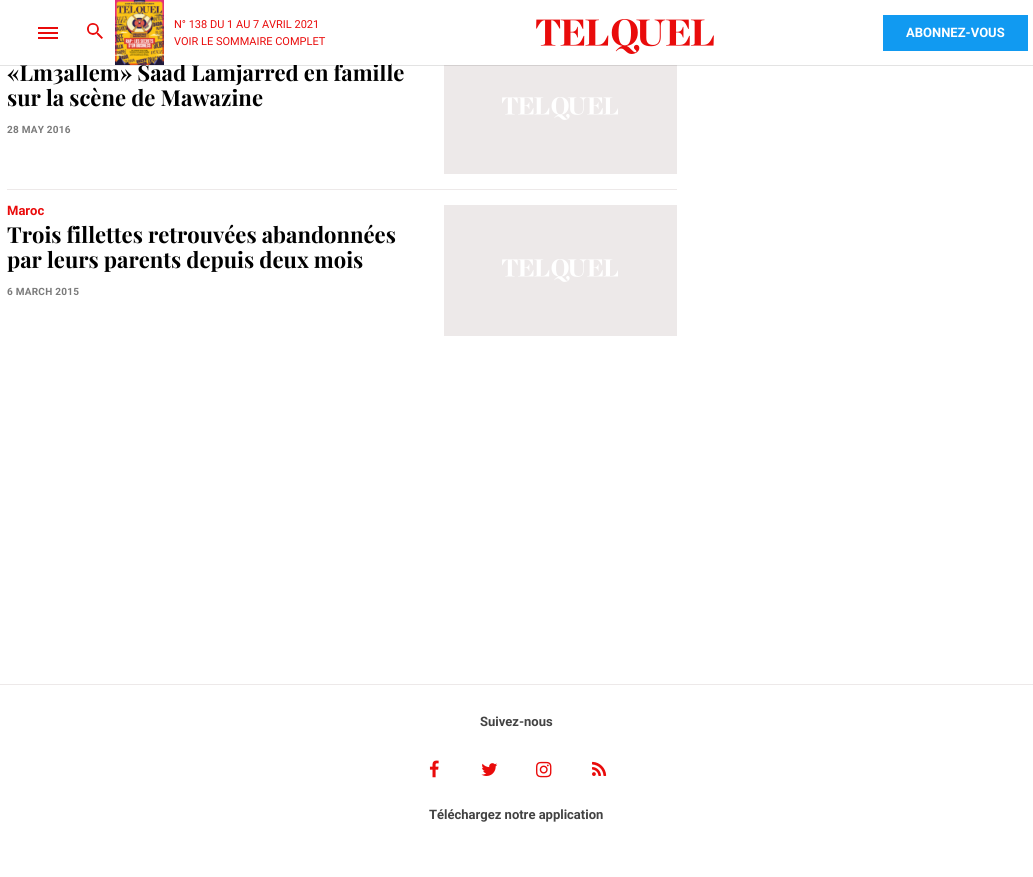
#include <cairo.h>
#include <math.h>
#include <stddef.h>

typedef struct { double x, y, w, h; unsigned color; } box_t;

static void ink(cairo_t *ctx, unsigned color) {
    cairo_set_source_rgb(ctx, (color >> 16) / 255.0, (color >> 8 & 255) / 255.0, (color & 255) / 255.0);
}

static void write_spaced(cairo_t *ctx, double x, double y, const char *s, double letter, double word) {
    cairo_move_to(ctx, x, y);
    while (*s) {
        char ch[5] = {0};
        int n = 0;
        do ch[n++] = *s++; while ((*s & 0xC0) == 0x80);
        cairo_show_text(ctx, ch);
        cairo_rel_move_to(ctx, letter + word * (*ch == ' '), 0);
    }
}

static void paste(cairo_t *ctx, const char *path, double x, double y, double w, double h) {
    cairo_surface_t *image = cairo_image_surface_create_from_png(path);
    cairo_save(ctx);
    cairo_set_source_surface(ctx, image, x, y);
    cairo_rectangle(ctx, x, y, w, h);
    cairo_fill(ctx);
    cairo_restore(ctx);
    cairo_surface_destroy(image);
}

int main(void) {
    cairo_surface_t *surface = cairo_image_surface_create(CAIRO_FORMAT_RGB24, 1033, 877);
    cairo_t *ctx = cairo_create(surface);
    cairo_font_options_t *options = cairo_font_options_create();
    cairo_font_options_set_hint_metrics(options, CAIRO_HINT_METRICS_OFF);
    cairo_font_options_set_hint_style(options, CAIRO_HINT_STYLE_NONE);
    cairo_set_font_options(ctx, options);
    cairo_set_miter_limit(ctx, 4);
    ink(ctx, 0xFFFFFF);
    cairo_paint(ctx);
    ink(ctx, 0xEDE9E9);
    cairo_rectangle(ctx, 444, 65, 233, 109);
    cairo_fill(ctx);
    cairo_set_source_rgba(ctx, 0, 0, 0, 0.11);
    cairo_rectangle(ctx, 0, 65, 1033, 1);
    cairo_fill(ctx);
    cairo_select_font_face(ctx, "Playfair Display", CAIRO_FONT_SLANT_NORMAL, CAIRO_FONT_WEIGHT_BOLD);
    cairo_set_font_size(ctx, 22);
    ink(ctx, 0x000000);
    cairo_move_to(ctx, 7, 81);
    cairo_show_text(ctx, "«Lm3allem» Saad Lamjarred en famille");
    {
        static const box_t items[] = {
            {74, 63, 317, 2, 0xFFFFFF},
            {38, 27, 20, 2, 0xE90B0B},
            {38, 32, 20, 2, 0xE90B0B},
            {38, 37, 20, 2, 0xE90B0B},
        };
        for (size_t i = 0; i < sizeof items / sizeof *items; i++) {
            ink(ctx, items[i].color);
            cairo_rectangle(ctx, items[i].x, items[i].y, items[i].w, items[i].h);
            cairo_fill(ctx);
        }
    }
    paste(ctx, "media/1.png", 87, 23, 16, 16);
    paste(ctx, "media/2.png", 115, 0, 49, 65);
    cairo_select_font_face(ctx, "Roboto", CAIRO_FONT_SLANT_NORMAL, CAIRO_FONT_WEIGHT_NORMAL);
    cairo_set_font_size(ctx, 11);
    cairo_move_to(ctx, 174, 28);
    cairo_show_text(ctx, "N° 138 DU 1 AU 7 AVRIL 2021");
    cairo_move_to(ctx, 174, 45);
    cairo_show_text(ctx, "VOIR LE SOMMAIRE COMPLET");
    paste(ctx, "media/3.png", 536, 19, 178, 35);
    ink(ctx, 0x119AF1);
    cairo_rectangle(ctx, 883, 15, 145, 36);
    cairo_fill(ctx);
    cairo_select_font_face(ctx, "Roboto", CAIRO_FONT_SLANT_NORMAL, CAIRO_FONT_WEIGHT_BOLD);
    cairo_set_font_size(ctx, 13);
    ink(ctx, 0xFFFFFF);
    cairo_move_to(ctx, 906, 37);
    cairo_show_text(ctx, "ABONNEZ-VOUS");
    ink(ctx, 0xEDE9E9);
    cairo_rectangle(ctx, 7, 189, 670, 1);
    cairo_fill(ctx);
    cairo_select_font_face(ctx, "Playfair Display", CAIRO_FONT_SLANT_NORMAL, CAIRO_FONT_WEIGHT_BOLD);
    cairo_set_font_size(ctx, 22);
    ink(ctx, 0x000000);
    cairo_move_to(ctx, 7, 106);
    cairo_show_text(ctx, "sur la scène de Mawazine");
    cairo_select_font_face(ctx, "Roboto", CAIRO_FONT_SLANT_NORMAL, CAIRO_FONT_WEIGHT_BOLD);
    cairo_set_font_size(ctx, 10);
    ink(ctx, 0x7A7A7A);
    write_spaced(ctx, 7, 133, "28 MAY 2016", 0.25, 0);
    paste(ctx, "media/4.png", 502, 97, 116, 23);
    cairo_set_font_size(ctx, 13);
    ink(ctx, 0xE90B0B);
    cairo_move_to(ctx, 7, 215);
    cairo_show_text(ctx, "Maroc");
    cairo_select_font_face(ctx, "Playfair Display", CAIRO_FONT_SLANT_NORMAL, CAIRO_FONT_WEIGHT_BOLD);
    cairo_set_font_size(ctx, 22);
    ink(ctx, 0x000000);
    cairo_move_to(ctx, 7, 243);
    cairo_show_text(ctx, "Trois fillettes retrouvées abandonnées");
    cairo_move_to(ctx, 7, 268);
    cairo_show_text(ctx, "par leurs parents depuis deux mois");
    cairo_select_font_face(ctx, "Roboto", CAIRO_FONT_SLANT_NORMAL, CAIRO_FONT_WEIGHT_BOLD);
    cairo_set_font_size(ctx, 10);
    ink(ctx, 0x7A7A7A);
    write_spaced(ctx, 7, 295, "6 MARCH 2015", 0.25, 0);
    ink(ctx, 0xEDE9E9);
    cairo_rectangle(ctx, 444, 205, 233, 131);
    cairo_fill(ctx);
    paste(ctx, "media/4.png", 502, 259, 116, 23);
    cairo_rectangle(ctx, 0, 684, 1033, 1);
    cairo_fill(ctx);
    cairo_set_font_size(ctx, 13);
    ink(ctx, 0x424242);
    cairo_move_to(ctx, 480, 726);
    cairo_show_text(ctx, "Suivez-nous");
    paste(ctx, "media/5.png", 429, 760, 10, 18);
    paste(ctx, "media/6.png", 481, 763, 17, 13);
    paste(ctx, "media/7.png", 536, 761, 16, 17);
    paste(ctx, "media/8.png", 592, 761, 15, 15);
    cairo_move_to(ctx, 429, 819);
    cairo_show_text(ctx, "Téléchargez notre application");
    cairo_surface_write_to_png(surface, "image.png");
    cairo_font_options_destroy(options);
    cairo_destroy(ctx);
    cairo_surface_destroy(surface);
    return 0;
}
